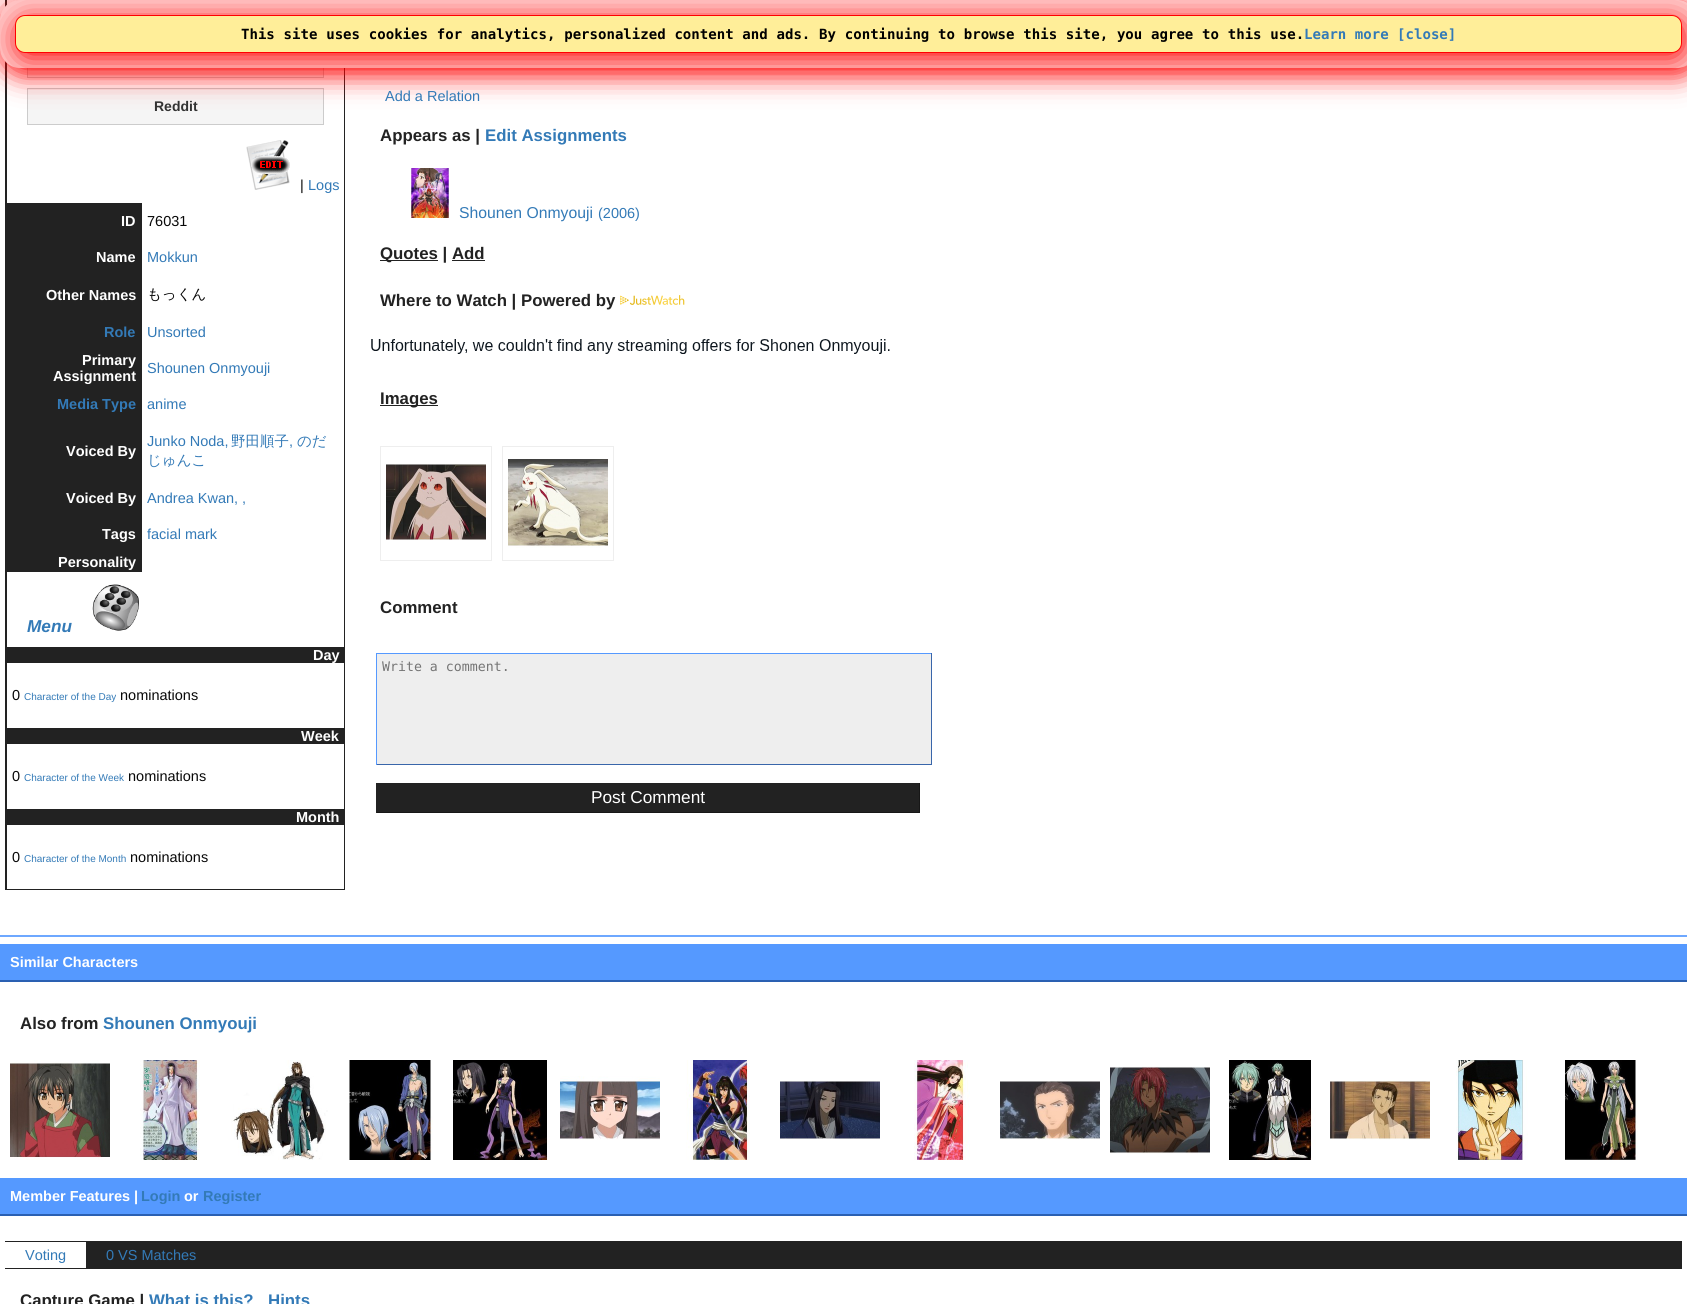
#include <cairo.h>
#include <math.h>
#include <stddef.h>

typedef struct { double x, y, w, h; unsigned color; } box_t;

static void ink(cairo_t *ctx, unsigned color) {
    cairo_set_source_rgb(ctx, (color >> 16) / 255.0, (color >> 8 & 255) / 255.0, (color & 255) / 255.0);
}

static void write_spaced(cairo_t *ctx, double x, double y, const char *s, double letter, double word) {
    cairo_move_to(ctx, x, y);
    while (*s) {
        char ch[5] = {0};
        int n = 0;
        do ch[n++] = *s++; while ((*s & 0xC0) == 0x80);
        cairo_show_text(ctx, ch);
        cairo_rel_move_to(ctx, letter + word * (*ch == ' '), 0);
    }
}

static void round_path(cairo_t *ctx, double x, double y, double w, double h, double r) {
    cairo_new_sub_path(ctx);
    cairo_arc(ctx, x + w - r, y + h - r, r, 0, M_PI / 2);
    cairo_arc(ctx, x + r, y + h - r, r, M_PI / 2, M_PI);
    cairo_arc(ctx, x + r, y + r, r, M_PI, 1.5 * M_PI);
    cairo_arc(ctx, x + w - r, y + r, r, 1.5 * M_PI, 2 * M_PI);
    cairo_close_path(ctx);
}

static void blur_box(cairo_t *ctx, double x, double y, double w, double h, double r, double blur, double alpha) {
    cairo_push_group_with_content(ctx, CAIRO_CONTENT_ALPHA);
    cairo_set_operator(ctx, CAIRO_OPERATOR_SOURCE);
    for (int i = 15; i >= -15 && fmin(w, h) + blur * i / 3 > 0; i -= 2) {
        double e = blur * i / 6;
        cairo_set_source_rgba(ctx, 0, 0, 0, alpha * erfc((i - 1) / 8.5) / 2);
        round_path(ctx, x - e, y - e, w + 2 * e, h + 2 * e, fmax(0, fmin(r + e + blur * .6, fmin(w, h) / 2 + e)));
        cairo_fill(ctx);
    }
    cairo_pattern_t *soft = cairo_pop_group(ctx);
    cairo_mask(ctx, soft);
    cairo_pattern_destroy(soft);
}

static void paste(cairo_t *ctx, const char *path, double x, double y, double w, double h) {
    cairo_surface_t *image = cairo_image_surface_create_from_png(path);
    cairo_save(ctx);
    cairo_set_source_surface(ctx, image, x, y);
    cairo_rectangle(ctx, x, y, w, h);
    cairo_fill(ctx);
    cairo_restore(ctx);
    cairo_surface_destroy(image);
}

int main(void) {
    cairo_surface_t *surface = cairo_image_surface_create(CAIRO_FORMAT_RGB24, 1687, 1304);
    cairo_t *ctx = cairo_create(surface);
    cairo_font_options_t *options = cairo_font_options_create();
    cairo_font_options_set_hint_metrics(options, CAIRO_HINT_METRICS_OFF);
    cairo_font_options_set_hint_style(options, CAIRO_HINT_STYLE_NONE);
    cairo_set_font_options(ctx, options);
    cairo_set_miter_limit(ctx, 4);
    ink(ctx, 0xFFFFFF);
    cairo_paint(ctx);
    cairo_rectangle(ctx, 5.5, -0.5, 339, 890);
    ink(ctx, 0x222222);
    cairo_set_line_width(ctx, 1);
    cairo_stroke(ctx);
    cairo_rectangle(ctx, 6, 0, 1, 203);
    cairo_fill(ctx);
    ink(ctx, 0xF5F5F5);
    cairo_rectangle(ctx, 28, 68, 295, 9);
    cairo_fill(ctx);
    cairo_rectangle(ctx, 27.5, 41.5, 296, 36);
    ink(ctx, 0xCCCCCC);
    cairo_stroke(ctx);
    ink(ctx, 0xF5F5F5);
    cairo_rectangle(ctx, 27.5, 88.5, 296, 36);
    cairo_fill_preserve(ctx);
    ink(ctx, 0xCCCCCC);
    cairo_stroke(ctx);
    ink(ctx, 0xFF0000);
    blur_box(ctx, 2, 5, 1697, 68, 20, 14.5, 1);
    ink(ctx, 0xFFCCCC);
    round_path(ctx, 0, 0, 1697, 68, 20);
    cairo_fill(ctx);
    ink(ctx, 0xFF0000);
    blur_box(ctx, 17, 20, 1667, 38, 10, 14, 1);
    ink(ctx, 0xFFEE99);
    round_path(ctx, 15.5, 15.5, 1666, 37, 9.5);
    cairo_fill_preserve(ctx);
    ink(ctx, 0xFF0000);
    cairo_stroke(ctx);
    cairo_select_font_face(ctx, "DejaVu Sans Mono", CAIRO_FONT_SLANT_NORMAL, CAIRO_FONT_WEIGHT_BOLD);
    cairo_set_font_size(ctx, 14.05);
    ink(ctx, 0x000000);
    write_spaced(ctx, 241, 39, "This site uses cookies for analytics, personalized content and ads. By continuing to browse this site, you agree to this use.", 0, 0.3);
    ink(ctx, 0x337AB7);
    cairo_move_to(ctx, 1304, 39);
    cairo_show_text(ctx, "Learn more [close]");
    cairo_select_font_face(ctx, "Liberation Sans", CAIRO_FONT_SLANT_NORMAL, CAIRO_FONT_WEIGHT_BOLD);
    cairo_set_font_size(ctx, 14);
    ink(ctx, 0x333333);
    cairo_move_to(ctx, 154, 111);
    cairo_show_text(ctx, "Reddit");
    paste(ctx, "media/1.png", 246, 140, 44, 50);
    cairo_select_font_face(ctx, "Liberation Sans", CAIRO_FONT_SLANT_NORMAL, CAIRO_FONT_WEIGHT_NORMAL);
    cairo_set_font_size(ctx, 14.5);
    ink(ctx, 0x080808);
    cairo_move_to(ctx, 300, 190);
    cairo_show_text(ctx, "|");
    ink(ctx, 0x337AB7);
    cairo_move_to(ctx, 308, 190);
    cairo_show_text(ctx, "Logs");
    ink(ctx, 0x222222);
    cairo_rectangle(ctx, 6, 203, 136, 36);
    cairo_fill(ctx);
    cairo_select_font_face(ctx, "Liberation Sans", CAIRO_FONT_SLANT_NORMAL, CAIRO_FONT_WEIGHT_BOLD);
    ink(ctx, 0xFFFFFF);
    cairo_move_to(ctx, 121, 226);
    cairo_show_text(ctx, "ID");
    cairo_select_font_face(ctx, "Liberation Sans", CAIRO_FONT_SLANT_NORMAL, CAIRO_FONT_WEIGHT_NORMAL);
    ink(ctx, 0x080808);
    cairo_move_to(ctx, 147, 226);
    cairo_show_text(ctx, "76031");
    ink(ctx, 0x222222);
    cairo_rectangle(ctx, 6, 239, 136, 36);
    cairo_fill(ctx);
    cairo_select_font_face(ctx, "Liberation Sans", CAIRO_FONT_SLANT_NORMAL, CAIRO_FONT_WEIGHT_BOLD);
    ink(ctx, 0xFFFFFF);
    cairo_move_to(ctx, 96, 262);
    cairo_show_text(ctx, "Name");
    cairo_select_font_face(ctx, "Liberation Sans", CAIRO_FONT_SLANT_NORMAL, CAIRO_FONT_WEIGHT_NORMAL);
    ink(ctx, 0x337AB7);
    cairo_move_to(ctx, 147, 262);
    cairo_show_text(ctx, "Mokkun");
    ink(ctx, 0x222222);
    cairo_rectangle(ctx, 6, 275, 136, 39);
    cairo_fill(ctx);
    cairo_select_font_face(ctx, "Liberation Sans", CAIRO_FONT_SLANT_NORMAL, CAIRO_FONT_WEIGHT_BOLD);
    ink(ctx, 0xFFFFFF);
    cairo_move_to(ctx, 46, 300);
    cairo_show_text(ctx, "Other Names");
    cairo_select_font_face(ctx, "WenQuanYi Zen Hei Medium", CAIRO_FONT_SLANT_NORMAL, CAIRO_FONT_WEIGHT_NORMAL);
    ink(ctx, 0x080808);
    cairo_move_to(ctx, 147, 299);
    cairo_show_text(ctx, "もっくん");
    ink(ctx, 0x222222);
    cairo_rectangle(ctx, 6, 314, 136, 36);
    cairo_fill(ctx);
    cairo_select_font_face(ctx, "Liberation Sans", CAIRO_FONT_SLANT_NORMAL, CAIRO_FONT_WEIGHT_BOLD);
    ink(ctx, 0x337AB7);
    cairo_move_to(ctx, 104, 337);
    cairo_show_text(ctx, "Role");
    cairo_select_font_face(ctx, "Liberation Sans", CAIRO_FONT_SLANT_NORMAL, CAIRO_FONT_WEIGHT_NORMAL);
    cairo_move_to(ctx, 147, 337);
    cairo_show_text(ctx, "Unsorted");
    ink(ctx, 0x222222);
    cairo_rectangle(ctx, 6, 350, 136, 36);
    cairo_fill(ctx);
    cairo_select_font_face(ctx, "Liberation Sans", CAIRO_FONT_SLANT_NORMAL, CAIRO_FONT_WEIGHT_BOLD);
    ink(ctx, 0xFFFFFF);
    cairo_move_to(ctx, 82, 365);
    cairo_show_text(ctx, "Primary");
    cairo_move_to(ctx, 53, 381);
    cairo_show_text(ctx, "Assignment");
    cairo_select_font_face(ctx, "Liberation Sans", CAIRO_FONT_SLANT_NORMAL, CAIRO_FONT_WEIGHT_NORMAL);
    ink(ctx, 0x337AB7);
    cairo_move_to(ctx, 147, 373);
    cairo_show_text(ctx, "Shounen Onmyouji");
    ink(ctx, 0x222222);
    cairo_rectangle(ctx, 6, 386, 136, 36);
    cairo_fill(ctx);
    cairo_select_font_face(ctx, "Liberation Sans", CAIRO_FONT_SLANT_NORMAL, CAIRO_FONT_WEIGHT_BOLD);
    ink(ctx, 0x337AB7);
    cairo_move_to(ctx, 57, 409);
    cairo_show_text(ctx, "Media Type");
    cairo_select_font_face(ctx, "Liberation Sans", CAIRO_FONT_SLANT_NORMAL, CAIRO_FONT_WEIGHT_NORMAL);
    cairo_move_to(ctx, 147, 409);
    cairo_show_text(ctx, "anime");
    ink(ctx, 0x222222);
    cairo_rectangle(ctx, 6, 422, 136, 58);
    cairo_fill(ctx);
    cairo_select_font_face(ctx, "Liberation Sans", CAIRO_FONT_SLANT_NORMAL, CAIRO_FONT_WEIGHT_BOLD);
    ink(ctx, 0xFFFFFF);
    cairo_move_to(ctx, 66, 456);
    cairo_show_text(ctx, "Voiced By");
    cairo_select_font_face(ctx, "Liberation Sans", CAIRO_FONT_SLANT_NORMAL, CAIRO_FONT_WEIGHT_NORMAL);
    ink(ctx, 0x337AB7);
    cairo_move_to(ctx, 147, 446);
    cairo_show_text(ctx, "Junko Noda,");
    cairo_select_font_face(ctx, "WenQuanYi Zen Hei Medium", CAIRO_FONT_SLANT_NORMAL, CAIRO_FONT_WEIGHT_NORMAL);
    cairo_move_to(ctx, 231, 446);
    cairo_show_text(ctx, "野田順子");
    cairo_select_font_face(ctx, "Liberation Sans", CAIRO_FONT_SLANT_NORMAL, CAIRO_FONT_WEIGHT_NORMAL);
    cairo_move_to(ctx, 289, 446);
    cairo_show_text(ctx, ",");
    cairo_select_font_face(ctx, "WenQuanYi Zen Hei Medium", CAIRO_FONT_SLANT_NORMAL, CAIRO_FONT_WEIGHT_NORMAL);
    cairo_move_to(ctx, 297, 446);
    cairo_show_text(ctx, "のだ");
    cairo_move_to(ctx, 147, 465);
    cairo_show_text(ctx, "じゅんこ");
    ink(ctx, 0x222222);
    cairo_rectangle(ctx, 6, 480, 136, 36);
    cairo_fill(ctx);
    cairo_select_font_face(ctx, "Liberation Sans", CAIRO_FONT_SLANT_NORMAL, CAIRO_FONT_WEIGHT_BOLD);
    ink(ctx, 0xFFFFFF);
    cairo_move_to(ctx, 66, 503);
    cairo_show_text(ctx, "Voiced By");
    cairo_select_font_face(ctx, "Liberation Sans", CAIRO_FONT_SLANT_NORMAL, CAIRO_FONT_WEIGHT_NORMAL);
    ink(ctx, 0x337AB7);
    cairo_move_to(ctx, 147, 503);
    cairo_show_text(ctx, "Andrea Kwan, ,");
    ink(ctx, 0x222222);
    cairo_rectangle(ctx, 6, 516, 136, 36);
    cairo_fill(ctx);
    cairo_select_font_face(ctx, "Liberation Sans", CAIRO_FONT_SLANT_NORMAL, CAIRO_FONT_WEIGHT_BOLD);
    ink(ctx, 0xFFFFFF);
    cairo_move_to(ctx, 102, 539);
    cairo_show_text(ctx, "Tags");
    cairo_select_font_face(ctx, "Liberation Sans", CAIRO_FONT_SLANT_NORMAL, CAIRO_FONT_WEIGHT_NORMAL);
    ink(ctx, 0x337AB7);
    cairo_move_to(ctx, 147, 539);
    cairo_show_text(ctx, "facial mark");
    ink(ctx, 0x222222);
    cairo_rectangle(ctx, 6, 552, 136, 20);
    cairo_fill(ctx);
    cairo_select_font_face(ctx, "Liberation Sans", CAIRO_FONT_SLANT_NORMAL, CAIRO_FONT_WEIGHT_BOLD);
    ink(ctx, 0xFFFFFF);
    cairo_move_to(ctx, 58, 567);
    cairo_show_text(ctx, "Personality");
    ink(ctx, 0x222222);
    cairo_rectangle(ctx, 6, 572, 1, 75);
    cairo_fill(ctx);
    cairo_select_font_face(ctx, "Liberation Sans", CAIRO_FONT_SLANT_ITALIC, CAIRO_FONT_WEIGHT_BOLD);
    cairo_set_font_size(ctx, 17.25);
    ink(ctx, 0x337AB7);
    cairo_move_to(ctx, 27, 632);
    cairo_show_text(ctx, "Menu");
    paste(ctx, "media/2.png", 92, 584, 47, 47);
    ink(ctx, 0x222222);
    cairo_rectangle(ctx, 6, 647, 338, 16);
    cairo_fill(ctx);
    cairo_select_font_face(ctx, "Liberation Sans", CAIRO_FONT_SLANT_NORMAL, CAIRO_FONT_WEIGHT_BOLD);
    cairo_set_font_size(ctx, 14.5);
    ink(ctx, 0xFFFFFF);
    cairo_move_to(ctx, 313, 660);
    cairo_show_text(ctx, "Day");
    ink(ctx, 0x222222);
    cairo_rectangle(ctx, 6, 663, 1, 65);
    cairo_fill(ctx);
    cairo_select_font_face(ctx, "Liberation Sans", CAIRO_FONT_SLANT_NORMAL, CAIRO_FONT_WEIGHT_NORMAL);
    ink(ctx, 0x080808);
    cairo_move_to(ctx, 12, 700);
    cairo_show_text(ctx, "0");
    cairo_set_font_size(ctx, 10);
    ink(ctx, 0x337AB7);
    cairo_move_to(ctx, 24, 700);
    cairo_show_text(ctx, "Character of the Day");
    cairo_set_font_size(ctx, 14.5);
    ink(ctx, 0x080808);
    cairo_move_to(ctx, 120, 700);
    cairo_show_text(ctx, "nominations");
    ink(ctx, 0x222222);
    cairo_rectangle(ctx, 6, 728, 338, 16);
    cairo_fill(ctx);
    cairo_select_font_face(ctx, "Liberation Sans", CAIRO_FONT_SLANT_NORMAL, CAIRO_FONT_WEIGHT_BOLD);
    ink(ctx, 0xFFFFFF);
    cairo_move_to(ctx, 301, 741);
    cairo_show_text(ctx, "Week");
    ink(ctx, 0x222222);
    cairo_rectangle(ctx, 6, 744, 1, 65);
    cairo_fill(ctx);
    cairo_select_font_face(ctx, "Liberation Sans", CAIRO_FONT_SLANT_NORMAL, CAIRO_FONT_WEIGHT_NORMAL);
    ink(ctx, 0x080808);
    cairo_move_to(ctx, 12, 781);
    cairo_show_text(ctx, "0");
    cairo_set_font_size(ctx, 10);
    ink(ctx, 0x337AB7);
    cairo_move_to(ctx, 24, 781);
    cairo_show_text(ctx, "Character of the Week");
    cairo_set_font_size(ctx, 14.5);
    ink(ctx, 0x080808);
    cairo_move_to(ctx, 128, 781);
    cairo_show_text(ctx, "nominations");
    ink(ctx, 0x222222);
    cairo_rectangle(ctx, 6, 809, 338, 16);
    cairo_fill(ctx);
    cairo_select_font_face(ctx, "Liberation Sans", CAIRO_FONT_SLANT_NORMAL, CAIRO_FONT_WEIGHT_BOLD);
    ink(ctx, 0xFFFFFF);
    cairo_move_to(ctx, 296, 822);
    cairo_show_text(ctx, "Month");
    ink(ctx, 0x222222);
    cairo_rectangle(ctx, 6, 825, 1, 64);
    cairo_fill(ctx);
    cairo_select_font_face(ctx, "Liberation Sans", CAIRO_FONT_SLANT_NORMAL, CAIRO_FONT_WEIGHT_NORMAL);
    ink(ctx, 0x080808);
    cairo_move_to(ctx, 12, 862);
    cairo_show_text(ctx, "0");
    cairo_set_font_size(ctx, 10);
    ink(ctx, 0x337AB7);
    cairo_move_to(ctx, 24, 862);
    cairo_show_text(ctx, "Character of the Month");
    cairo_set_font_size(ctx, 14.5);
    ink(ctx, 0x080808);
    cairo_move_to(ctx, 130, 862);
    cairo_show_text(ctx, "nominations");
    ink(ctx, 0x337AB7);
    cairo_move_to(ctx, 385, 101);
    cairo_show_text(ctx, "Add a Relation");
    cairo_select_font_face(ctx, "Liberation Sans", CAIRO_FONT_SLANT_NORMAL, CAIRO_FONT_WEIGHT_BOLD);
    cairo_set_font_size(ctx, 16.8);
    ink(ctx, 0x222222);
    cairo_move_to(ctx, 380, 141);
    cairo_show_text(ctx, "Appears as |");
    ink(ctx, 0x337AB7);
    cairo_move_to(ctx, 485, 141);
    cairo_show_text(ctx, "Edit Assignments");
    paste(ctx, "media/3.png", 411, 168, 38, 50);
    cairo_select_font_face(ctx, "Liberation Sans", CAIRO_FONT_SLANT_NORMAL, CAIRO_FONT_WEIGHT_NORMAL);
    cairo_set_font_size(ctx, 15.75);
    cairo_move_to(ctx, 459, 218);
    cairo_show_text(ctx, "Shounen Onmyouji");
    cairo_set_font_size(ctx, 14.5);
    cairo_move_to(ctx, 598, 218);
    cairo_show_text(ctx, "(2006)");
    ink(ctx, 0x222222);
    cairo_rectangle(ctx, 380, 260, 58, 1);
    cairo_fill(ctx);
    cairo_select_font_face(ctx, "Liberation Sans", CAIRO_FONT_SLANT_NORMAL, CAIRO_FONT_WEIGHT_BOLD);
    cairo_set_font_size(ctx, 16.8);
    cairo_move_to(ctx, 380, 259);
    cairo_show_text(ctx, "Quotes | Add");
    cairo_rectangle(ctx, 452, 260, 33, 1);
    cairo_fill(ctx);
    cairo_move_to(ctx, 380, 306);
    cairo_show_text(ctx, "Where to Watch | Powered by");
    paste(ctx, "media/4.png", 620, 295, 65, 10);
    paste(ctx, "media/5.png", 371, 339, 519, 15);
    cairo_rectangle(ctx, 380, 405, 58, 1);
    cairo_fill(ctx);
    cairo_move_to(ctx, 380, 404);
    cairo_show_text(ctx, "Images");
    cairo_rectangle(ctx, 380.5, 446.5, 111, 114);
    ink(ctx, 0xEEEEEE);
    cairo_stroke(ctx);
    paste(ctx, "media/6.png", 386, 464, 100, 76);
    cairo_rectangle(ctx, 502.5, 446.5, 111, 114);
    cairo_stroke(ctx);
    paste(ctx, "media/7.png", 508, 459, 100, 89);
    ink(ctx, 0x222222);
    cairo_move_to(ctx, 380, 613);
    cairo_show_text(ctx, "Comment");
    {
        static const box_t items[] = {
            {377, 654, 554, 110, 0xEEEEEE},
            {376, 653, 556, 1, 0x5599FF},
            {931, 653, 1, 112, 0x3966AA},
            {376, 764, 556, 1, 0x3966AA},
            {376, 653, 1, 112, 0x5599FF},
        };
        for (size_t i = 0; i < sizeof items / sizeof *items; i++) {
            ink(ctx, items[i].color);
            cairo_rectangle(ctx, items[i].x, items[i].y, items[i].w, items[i].h);
            cairo_fill(ctx);
        }
    }
    cairo_select_font_face(ctx, "DejaVu Sans Mono", CAIRO_FONT_SLANT_NORMAL, CAIRO_FONT_WEIGHT_NORMAL);
    cairo_set_font_size(ctx, 13.25);
    ink(ctx, 0x757575);
    cairo_move_to(ctx, 382, 671);
    cairo_show_text(ctx, "Write a comment.");
    {
        static const box_t items[] = {
            {377, 783, 542, 29, 0x222222},
            {919, 783, 1, 30, 0x171717},
            {376, 812, 544, 1, 0x171717},
            {376, 783, 1, 30, 0x222222},
        };
        for (size_t i = 0; i < sizeof items / sizeof *items; i++) {
            ink(ctx, items[i].color);
            cairo_rectangle(ctx, items[i].x, items[i].y, items[i].w, items[i].h);
            cairo_fill(ctx);
        }
    }
    cairo_select_font_face(ctx, "Liberation Sans", CAIRO_FONT_SLANT_NORMAL, CAIRO_FONT_WEIGHT_NORMAL);
    cairo_set_font_size(ctx, 17.25);
    ink(ctx, 0xFFFFFF);
    cairo_move_to(ctx, 591, 803);
    cairo_show_text(ctx, "Post Comment");
    {
        static const box_t items[] = {
            {0, 935, 1687, 2, 0x6EA8FF},
            {0, 944, 1687, 36, 0x5599FF},
            {0, 980, 1687, 2, 0x2A60B2},
        };
        for (size_t i = 0; i < sizeof items / sizeof *items; i++) {
            ink(ctx, items[i].color);
            cairo_rectangle(ctx, items[i].x, items[i].y, items[i].w, items[i].h);
            cairo_fill(ctx);
        }
    }
    cairo_select_font_face(ctx, "Liberation Sans", CAIRO_FONT_SLANT_NORMAL, CAIRO_FONT_WEIGHT_BOLD);
    cairo_set_font_size(ctx, 14.5);
    ink(ctx, 0xFFFFFF);
    cairo_move_to(ctx, 10, 967);
    cairo_show_text(ctx, "Similar Characters");
    cairo_set_font_size(ctx, 16.8);
    ink(ctx, 0x222222);
    cairo_move_to(ctx, 20, 1029);
    cairo_show_text(ctx, "Also from");
    ink(ctx, 0x337AB7);
    cairo_move_to(ctx, 103, 1029);
    cairo_show_text(ctx, "Shounen Onmyouji");
    paste(ctx, "media/8.png", 10, 1060, 100, 100);
    paste(ctx, "media/9.png", 140, 1060, 60, 100);
    paste(ctx, "media/10.png", 231, 1060, 97, 100);
    paste(ctx, "media/11.png", 349, 1060, 84, 100);
    paste(ctx, "media/12.png", 453, 1060, 97, 100);
    paste(ctx, "media/13.png", 560, 1076, 100, 64);
    paste(ctx, "media/14.png", 686, 1060, 64, 100);
    paste(ctx, "media/15.png", 780, 1080, 100, 59);
    paste(ctx, "media/16.png", 914, 1060, 56, 100);
    paste(ctx, "media/17.png", 1000, 1081, 100, 59);
    paste(ctx, "media/18.png", 1110, 1066, 100, 88);
    paste(ctx, "media/19.png", 1229, 1060, 87, 100);
    paste(ctx, "media/20.png", 1330, 1080, 100, 60);
    paste(ctx, "media/21.png", 1456, 1060, 72, 100);
    paste(ctx, "media/22.png", 1565, 1060, 73, 100);
    ink(ctx, 0x5599FF);
    cairo_rectangle(ctx, 0, 1178, 1687, 36);
    cairo_fill(ctx);
    ink(ctx, 0x2A60B2);
    cairo_rectangle(ctx, 0, 1214, 1687, 2);
    cairo_fill(ctx);
    cairo_set_font_size(ctx, 14.5);
    ink(ctx, 0xFFFFFF);
    cairo_move_to(ctx, 10, 1201);
    cairo_show_text(ctx, "Member Features |");
    ink(ctx, 0x337AB7);
    cairo_move_to(ctx, 141, 1201);
    cairo_show_text(ctx, "Login");
    ink(ctx, 0xFFFFFF);
    cairo_move_to(ctx, 184, 1201);
    cairo_show_text(ctx, "or");
    ink(ctx, 0x337AB7);
    cairo_move_to(ctx, 203, 1201);
    cairo_show_text(ctx, "Register");
    ink(ctx, 0x222222);
    cairo_rectangle(ctx, 5, 1241, 1677, 28);
    cairo_fill(ctx);
    ink(ctx, 0xFFFFFF);
    cairo_rectangle(ctx, 5, 1242, 81, 26);
    cairo_fill(ctx);
    cairo_select_font_face(ctx, "Liberation Sans", CAIRO_FONT_SLANT_NORMAL, CAIRO_FONT_WEIGHT_NORMAL);
    ink(ctx, 0x337AB7);
    cairo_move_to(ctx, 25, 1260);
    cairo_show_text(ctx, "Voting");
    cairo_move_to(ctx, 106, 1260);
    cairo_show_text(ctx, "0 VS Matches");
    cairo_select_font_face(ctx, "Liberation Sans", CAIRO_FONT_SLANT_NORMAL, CAIRO_FONT_WEIGHT_BOLD);
    cairo_set_font_size(ctx, 16.8);
    ink(ctx, 0x222222);
    cairo_move_to(ctx, 20, 1306);
    cairo_show_text(ctx, "Capture Game |");
    ink(ctx, 0x337AB7);
    cairo_move_to(ctx, 149, 1306);
    cairo_show_text(ctx, "What is this?");
    cairo_move_to(ctx, 268, 1306);
    cairo_show_text(ctx, "Hints");
    cairo_surface_write_to_png(surface, "image.png");
    cairo_font_options_destroy(options);
    cairo_destroy(ctx);
    cairo_surface_destroy(surface);
    return 0;
}
